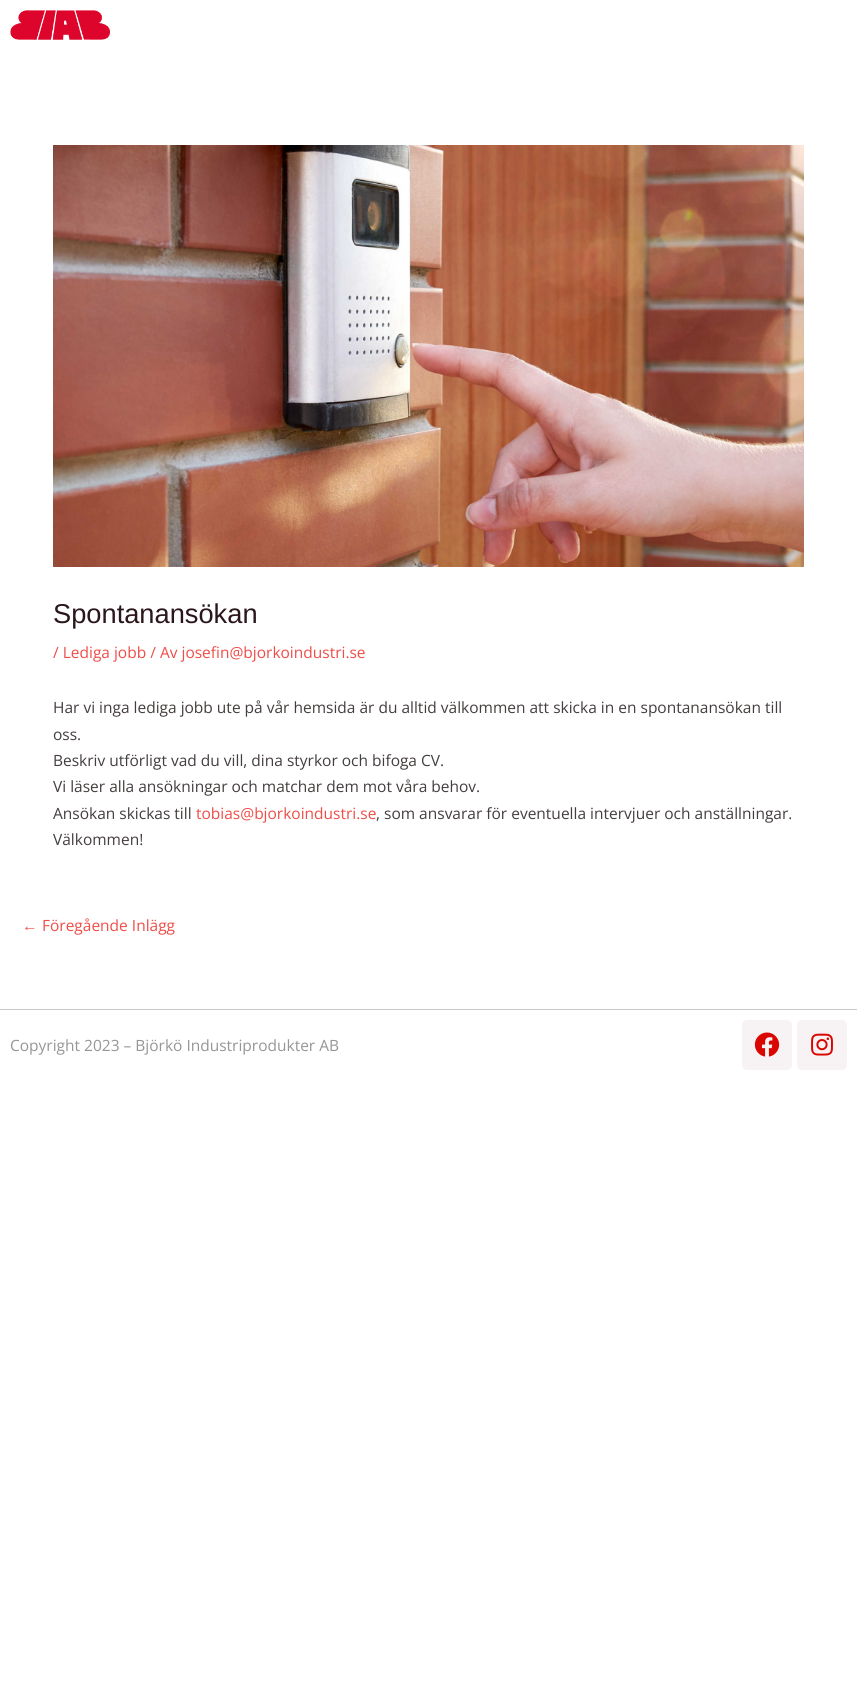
#include <cairo.h>
#include <math.h>
#include <stddef.h>

typedef struct { double x, y; const char *s; } line_t;

static void ink(cairo_t *ctx, unsigned color) {
    cairo_set_source_rgb(ctx, (color >> 16) / 255.0, (color >> 8 & 255) / 255.0, (color & 255) / 255.0);
}

static void round_path(cairo_t *ctx, double x, double y, double w, double h, double r) {
    cairo_new_sub_path(ctx);
    cairo_arc(ctx, x + w - r, y + h - r, r, 0, M_PI / 2);
    cairo_arc(ctx, x + r, y + h - r, r, M_PI / 2, M_PI);
    cairo_arc(ctx, x + r, y + r, r, M_PI, 1.5 * M_PI);
    cairo_arc(ctx, x + w - r, y + r, r, 1.5 * M_PI, 2 * M_PI);
    cairo_close_path(ctx);
}

static void paste(cairo_t *ctx, const char *path, double x, double y, double w, double h) {
    cairo_surface_t *image = cairo_image_surface_create_from_png(path);
    cairo_save(ctx);
    cairo_set_source_surface(ctx, image, x, y);
    cairo_rectangle(ctx, x, y, w, h);
    cairo_fill(ctx);
    cairo_restore(ctx);
    cairo_surface_destroy(image);
}

int main(void) {
    cairo_surface_t *surface = cairo_image_surface_create(CAIRO_FORMAT_RGB24, 857, 1701);
    cairo_t *ctx = cairo_create(surface);
    cairo_font_options_t *options = cairo_font_options_create();
    cairo_font_options_set_hint_metrics(options, CAIRO_HINT_METRICS_OFF);
    cairo_font_options_set_hint_style(options, CAIRO_HINT_STYLE_NONE);
    cairo_set_font_options(ctx, options);
    cairo_set_miter_limit(ctx, 4);
    ink(ctx, 0xFFFFFF);
    cairo_paint(ctx);
    paste(ctx, "media/1.png", 10, 10, 100, 30);
    paste(ctx, "media/2.png", 53, 145, 751, 422);
    cairo_select_font_face(ctx, "Liberation Sans", CAIRO_FONT_SLANT_NORMAL, CAIRO_FONT_WEIGHT_NORMAL);
    cairo_set_font_size(ctx, 27.25);
    ink(ctx, 0x2B161B);
    cairo_move_to(ctx, 53, 623);
    cairo_show_text(ctx, "Spontanansökan");
    cairo_select_font_face(ctx, "Open Sans", CAIRO_FONT_SLANT_NORMAL, CAIRO_FONT_WEIGHT_NORMAL);
    cairo_set_font_size(ctx, 15.5);
    ink(ctx, 0xEF4D48);
    cairo_move_to(ctx, 53, 658);
    cairo_show_text(ctx, "/ Lediga jobb / Av josefin@bjorkoindustri.se");
    ink(ctx, 0x453E3E);
    {
        static const line_t items[] = {
            {53, 713, "Har vi inga lediga jobb ute på vår hemsida är du alltid välkommen att skicka in en spontanansökan till"},
            {53, 740, "oss."},
            {53, 766, "Beskriv utförligt vad du vill, dina styrkor och bifoga CV."},
            {53, 792, "Vi läser alla ansökningar och matchar dem mot våra behov."},
            {53, 819, "Ansökan skickas till"},
        };
        for (size_t i = 0; i < sizeof items / sizeof *items; i++) {
            cairo_move_to(ctx, items[i].x, items[i].y);
            cairo_show_text(ctx, items[i].s);
        }
    }
    ink(ctx, 0xEF4D48);
    cairo_move_to(ctx, 196, 819);
    cairo_show_text(ctx, "tobias@bjorkoindustri.se");
    ink(ctx, 0x453E3E);
    cairo_move_to(ctx, 376, 819);
    cairo_show_text(ctx, ", som ansvarar för eventuella intervjuer och anställningar.");
    cairo_move_to(ctx, 53, 845);
    cairo_show_text(ctx, "Välkommen!");
    cairo_select_font_face(ctx, "Liberation Sans", CAIRO_FONT_SLANT_NORMAL, CAIRO_FONT_WEIGHT_NORMAL);
    ink(ctx, 0xEF4D48);
    cairo_move_to(ctx, 22, 931);
    cairo_show_text(ctx, "←");
    cairo_select_font_face(ctx, "Open Sans", CAIRO_FONT_SLANT_NORMAL, CAIRO_FONT_WEIGHT_NORMAL);
    cairo_move_to(ctx, 42, 931);
    cairo_show_text(ctx, "Föregående Inlägg");
    ink(ctx, 0xC9C9C9);
    cairo_rectangle(ctx, 0, 1009, 857, 1);
    cairo_fill(ctx);
    ink(ctx, 0x969696);
    cairo_move_to(ctx, 10, 1051);
    cairo_show_text(ctx, "Copyright 2023 – Björkö Industriprodukter AB");
    ink(ctx, 0xF7F3F5);
    round_path(ctx, 742, 1020, 50, 50, 5);
    cairo_fill(ctx);
    paste(ctx, "media/3.png", 754, 1032, 26, 25);
    round_path(ctx, 797, 1020, 50, 50, 5);
    cairo_fill(ctx);
    paste(ctx, "media/4.png", 811, 1033, 22, 23);
    cairo_surface_write_to_png(surface, "image.png");
    cairo_font_options_destroy(options);
    cairo_destroy(ctx);
    cairo_surface_destroy(surface);
    return 0;
}
